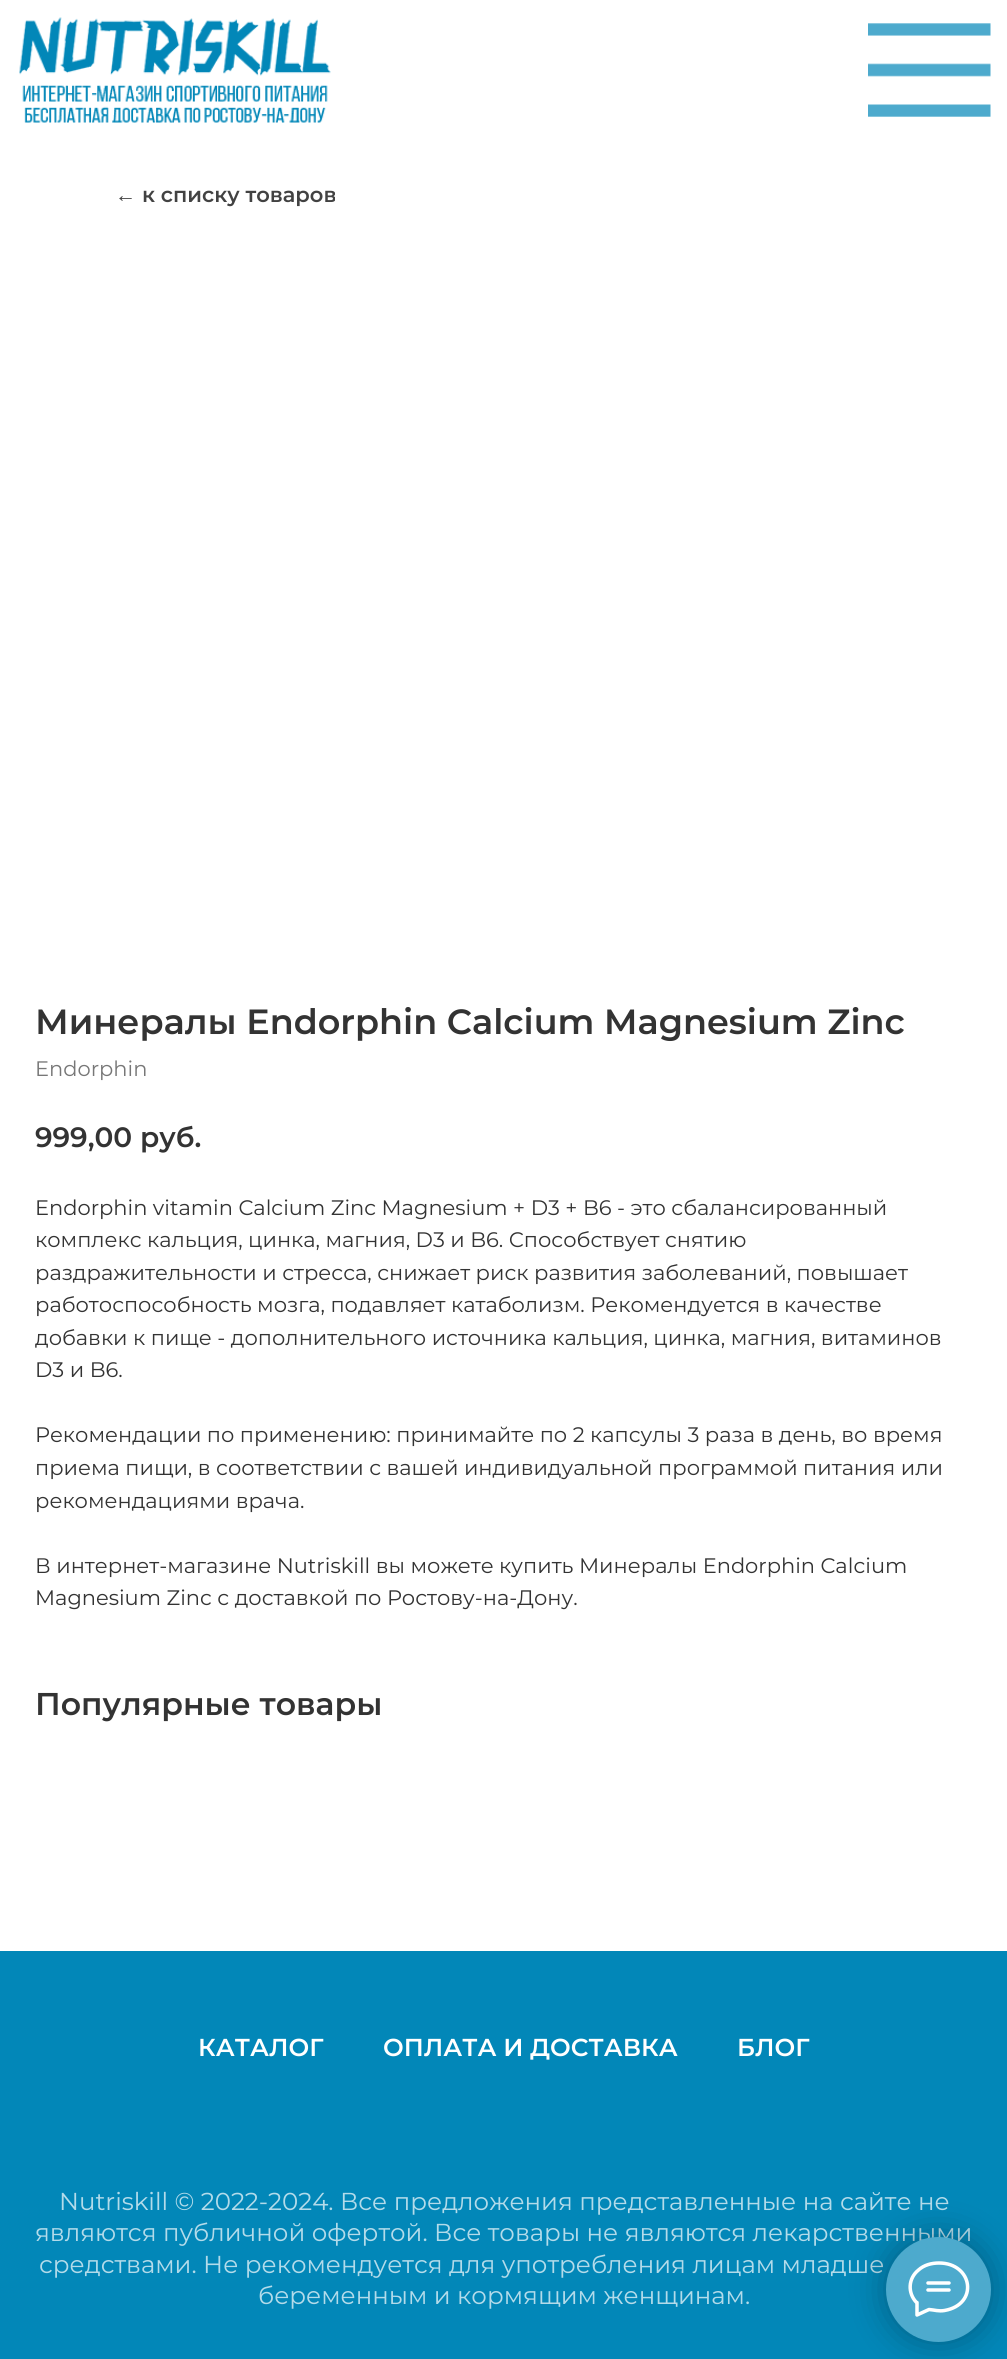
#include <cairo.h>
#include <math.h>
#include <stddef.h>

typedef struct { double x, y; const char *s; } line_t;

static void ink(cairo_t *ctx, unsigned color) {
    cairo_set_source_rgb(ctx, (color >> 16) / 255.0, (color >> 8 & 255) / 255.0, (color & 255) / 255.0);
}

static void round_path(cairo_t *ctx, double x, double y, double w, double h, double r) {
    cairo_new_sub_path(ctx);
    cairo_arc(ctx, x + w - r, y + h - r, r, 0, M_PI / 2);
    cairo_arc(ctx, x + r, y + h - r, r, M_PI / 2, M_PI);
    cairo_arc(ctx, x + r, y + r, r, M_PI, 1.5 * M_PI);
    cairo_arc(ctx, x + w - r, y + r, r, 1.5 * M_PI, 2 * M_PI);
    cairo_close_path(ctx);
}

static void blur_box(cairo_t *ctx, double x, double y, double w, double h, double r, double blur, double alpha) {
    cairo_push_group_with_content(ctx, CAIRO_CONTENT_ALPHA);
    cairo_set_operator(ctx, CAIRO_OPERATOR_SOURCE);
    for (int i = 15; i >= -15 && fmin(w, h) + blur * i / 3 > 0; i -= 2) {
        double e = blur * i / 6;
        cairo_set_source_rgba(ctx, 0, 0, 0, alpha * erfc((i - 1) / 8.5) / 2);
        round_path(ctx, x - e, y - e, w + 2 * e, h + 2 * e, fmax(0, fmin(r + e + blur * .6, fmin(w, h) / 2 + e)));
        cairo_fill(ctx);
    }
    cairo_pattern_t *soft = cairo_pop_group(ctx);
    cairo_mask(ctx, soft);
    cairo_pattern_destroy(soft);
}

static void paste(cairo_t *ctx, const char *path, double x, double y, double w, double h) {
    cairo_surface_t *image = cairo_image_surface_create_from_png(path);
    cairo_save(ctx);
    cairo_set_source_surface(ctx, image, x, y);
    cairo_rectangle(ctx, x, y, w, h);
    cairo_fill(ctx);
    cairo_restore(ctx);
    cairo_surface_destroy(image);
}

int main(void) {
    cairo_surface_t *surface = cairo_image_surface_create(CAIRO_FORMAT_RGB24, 1007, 2359);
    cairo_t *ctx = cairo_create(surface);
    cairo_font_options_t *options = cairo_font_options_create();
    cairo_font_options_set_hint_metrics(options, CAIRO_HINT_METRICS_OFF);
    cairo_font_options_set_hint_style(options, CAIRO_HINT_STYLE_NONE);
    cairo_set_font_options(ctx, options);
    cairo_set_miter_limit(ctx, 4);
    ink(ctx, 0xFFFFFF);
    cairo_paint(ctx);
    paste(ctx, "media/1.png", 19, 17, 312, 106);
    paste(ctx, "media/2.png", 868, 23, 123, 94);
    cairo_select_font_face(ctx, "Liberation Sans", CAIRO_FONT_SLANT_NORMAL, CAIRO_FONT_WEIGHT_BOLD);
    cairo_set_font_size(ctx, 21);
    ink(ctx, 0x424242);
    cairo_move_to(ctx, 115, 202);
    cairo_show_text(ctx, "←");
    cairo_select_font_face(ctx, "Montserrat SemiBold", CAIRO_FONT_SLANT_NORMAL, CAIRO_FONT_WEIGHT_NORMAL);
    cairo_move_to(ctx, 142, 202);
    cairo_show_text(ctx, "к списку товаров");
    cairo_set_font_size(ctx, 35);
    ink(ctx, 0x333333);
    cairo_move_to(ctx, 35, 1034);
    cairo_show_text(ctx, "Минералы Endorphin Calcium Magnesium Zinc");
    cairo_select_font_face(ctx, "Montserrat", CAIRO_FONT_SLANT_NORMAL, CAIRO_FONT_WEIGHT_NORMAL);
    cairo_set_font_size(ctx, 21);
    ink(ctx, 0x777777);
    cairo_move_to(ctx, 35, 1076);
    cairo_show_text(ctx, "Endorphin");
    cairo_select_font_face(ctx, "Montserrat SemiBold", CAIRO_FONT_SLANT_NORMAL, CAIRO_FONT_WEIGHT_NORMAL);
    cairo_set_font_size(ctx, 28);
    ink(ctx, 0x333333);
    cairo_move_to(ctx, 35, 1147);
    cairo_show_text(ctx, "999,00 руб.");
    cairo_select_font_face(ctx, "Montserrat", CAIRO_FONT_SLANT_NORMAL, CAIRO_FONT_WEIGHT_NORMAL);
    cairo_set_font_size(ctx, 21);
    {
        static const line_t items[] = {
            {35, 1215, "Endorphin vitamin Calcium Zinc Magnesium + D3 + B6 - это сбалансированный"},
            {35, 1247, "комплекс кальция, цинка, магния, D3 и B6. Способствует снятию"},
            {35, 1280, "раздражительности и стресса, снижает риск развития заболеваний, повышает"},
            {35, 1312, "работоспособность мозга, подавляет катаболизм. Рекомендуется в качестве"},
            {35, 1345, "добавки к пище - дополнительного источника кальция, цинка, магния, витаминов"},
            {35, 1377, "D3 и B6."},
            {35, 1442, "Рекомендации по применению: принимайте по 2 капсулы 3 раза в день, во время"},
            {35, 1475, "приема пищи, в соответствии с вашей индивидуальной программой питания или"},
            {35, 1508, "рекомендациями врача."},
            {35, 1573, "В интернет-магазине Nutriskill вы можете купить Минералы Endorphin Calcium"},
            {35, 1605, "Magnesium Zinc с доставкой по Ростову-на-Дону."},
        };
        for (size_t i = 0; i < sizeof items / sizeof *items; i++) {
            cairo_move_to(ctx, items[i].x, items[i].y);
            cairo_show_text(ctx, items[i].s);
        }
    }
    cairo_select_font_face(ctx, "Montserrat SemiBold", CAIRO_FONT_SLANT_NORMAL, CAIRO_FONT_WEIGHT_NORMAL);
    cairo_set_font_size(ctx, 31.5);
    cairo_move_to(ctx, 35, 1715);
    cairo_show_text(ctx, "Популярные товары");
    ink(ctx, 0x0287B8);
    cairo_rectangle(ctx, 0, 1951, 1007, 408);
    cairo_fill(ctx);
    cairo_set_font_size(ctx, 24.5);
    ink(ctx, 0xFFFFFF);
    {
        static const line_t items[] = {
            {198, 2056, "КАТАЛОГ"},
            {383, 2056, "ОПЛАТА И ДОСТАВКА"},
            {737, 2056, "БЛОГ"},
        };
        for (size_t i = 0; i < sizeof items / sizeof *items; i++) {
            cairo_move_to(ctx, items[i].x, items[i].y);
            cairo_show_text(ctx, items[i].s);
        }
    }
    cairo_select_font_face(ctx, "Montserrat", CAIRO_FONT_SLANT_NORMAL, CAIRO_FONT_WEIGHT_NORMAL);
    ink(ctx, 0xB3DBEA);
    {
        static const line_t items[] = {
            {59, 2210, "Nutriskill © 2022-2024. Все предложения представленные на сайте не"},
            {35, 2241, "являются публичной офертой. Все товары не являются лекарственными"},
            {39, 2273, "средствами. Не рекомендуется для употребления лицам младше"},
            {258, 2304, "беременным и кормящим женщинам."},
        };
        for (size_t i = 0; i < sizeof items / sizeof *items; i++) {
            cairo_move_to(ctx, items[i].x, items[i].y);
            cairo_show_text(ctx, items[i].s);
        }
    }
    ink(ctx, 0x000000);
    blur_box(ctx, 886, 2237, 105, 105, 52.5, 17.5, 0.3);
    ink(ctx, 0x4DAACD);
    cairo_arc(ctx, 938.5, 2289.5, 52.5, 0, 2 * M_PI);
    cairo_fill(ctx);
    cairo_new_path(ctx);
    cairo_move_to(ctx, 928, 2283);
    cairo_line_to(ctx, 949, 2283);
    cairo_move_to(ctx, 928, 2290);
    cairo_line_to(ctx, 949, 2290);
    cairo_move_to(ctx, 916.5, 2302.5);
    cairo_curve_to(ctx, 907.5, 2293, 908, 2278.5, 918.5, 2270);
    cairo_curve_to(ctx, 924, 2265, 931.5, 2263, 939, 2263);
    cairo_curve_to(ctx, 973, 2263, 979, 2304.5, 944.5, 2310.5);
    cairo_curve_to(ctx, 938.5, 2311.5, 935, 2310, 929, 2309.5);
    cairo_line_to(ctx, 917, 2315);
    cairo_line_to(ctx, 917, 2302.5);
    cairo_close_path(ctx);
    ink(ctx, 0xFFFFFF);
    cairo_set_line_width(ctx, 3.5);
    cairo_set_line_cap(ctx, CAIRO_LINE_CAP_ROUND);
    cairo_set_line_join(ctx, CAIRO_LINE_JOIN_ROUND);
    cairo_stroke(ctx);
    cairo_surface_write_to_png(surface, "image.png");
    cairo_font_options_destroy(options);
    cairo_destroy(ctx);
    cairo_surface_destroy(surface);
    return 0;
}
